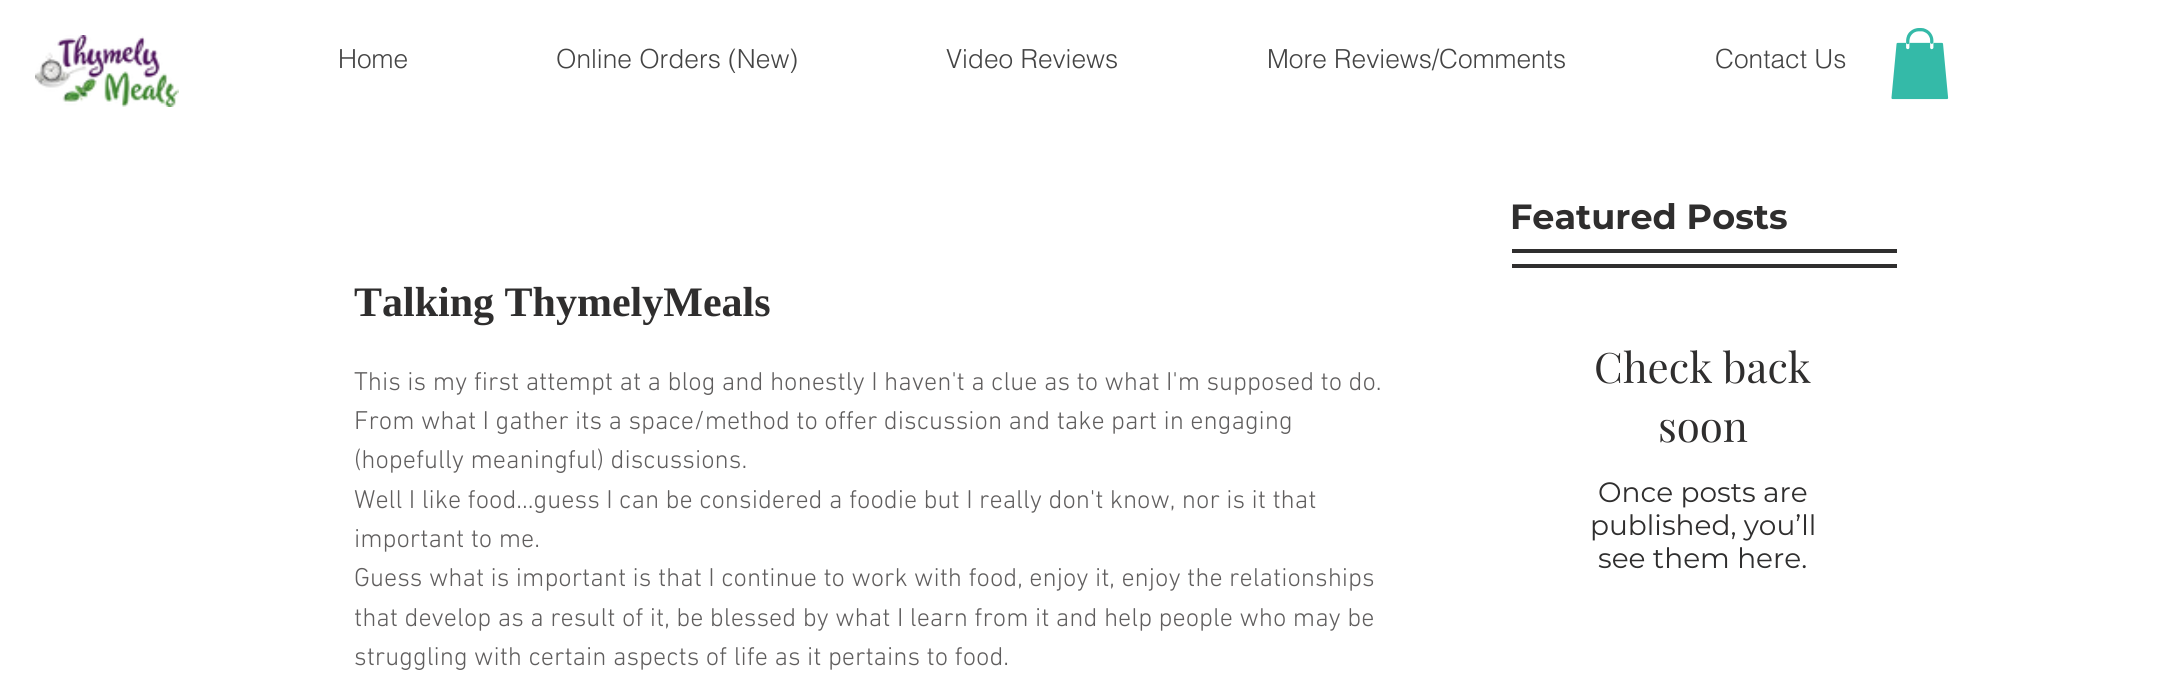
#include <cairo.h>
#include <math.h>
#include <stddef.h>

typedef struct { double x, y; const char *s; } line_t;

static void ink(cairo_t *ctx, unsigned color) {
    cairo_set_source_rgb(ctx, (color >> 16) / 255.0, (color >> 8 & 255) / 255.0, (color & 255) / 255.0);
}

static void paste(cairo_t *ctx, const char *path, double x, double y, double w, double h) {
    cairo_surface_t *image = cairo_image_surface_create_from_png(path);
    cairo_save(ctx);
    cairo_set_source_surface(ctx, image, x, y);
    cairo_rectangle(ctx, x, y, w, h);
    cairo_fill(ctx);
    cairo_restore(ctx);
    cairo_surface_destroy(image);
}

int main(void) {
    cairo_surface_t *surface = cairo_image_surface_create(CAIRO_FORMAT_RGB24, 2184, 677);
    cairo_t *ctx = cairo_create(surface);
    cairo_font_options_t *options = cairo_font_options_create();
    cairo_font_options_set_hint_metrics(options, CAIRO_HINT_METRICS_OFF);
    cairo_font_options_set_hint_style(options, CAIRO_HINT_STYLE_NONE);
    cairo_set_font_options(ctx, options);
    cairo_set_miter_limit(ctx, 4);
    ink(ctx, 0xFFFFFF);
    cairo_paint(ctx);
    paste(ctx, "media/1.png", 35, 35, 144, 72);
    cairo_select_font_face(ctx, "helvetica Light", CAIRO_FONT_SLANT_NORMAL, CAIRO_FONT_WEIGHT_NORMAL);
    cairo_set_font_size(ctx, 26.25);
    ink(ctx, 0x444444);
    {
        static const line_t items[] = {
            {338, 68, "Home"},
            {556, 68, "Online Orders (New)"},
            {946, 68, "Video Reviews"},
            {1267, 68, "More Reviews/Comments"},
            {1715, 68, "Contact Us"},
        };
        for (size_t i = 0; i < sizeof items / sizeof *items; i++) {
            cairo_move_to(ctx, items[i].x, items[i].y);
            cairo_show_text(ctx, items[i].s);
        }
    }
    paste(ctx, "media/2.png", 1891, 28, 58, 72);
    cairo_select_font_face(ctx, "Montserrat", CAIRO_FONT_SLANT_NORMAL, CAIRO_FONT_WEIGHT_BOLD);
    cairo_set_font_size(ctx, 35);
    ink(ctx, 0x2F2E2E);
    cairo_move_to(ctx, 1510, 229);
    cairo_show_text(ctx, "Featured Posts");
    cairo_rectangle(ctx, 1512, 249, 385, 4);
    cairo_fill(ctx);
    cairo_rectangle(ctx, 1512, 264, 385, 4);
    cairo_fill(ctx);
    cairo_select_font_face(ctx, "Liberation Serif", CAIRO_FONT_SLANT_NORMAL, CAIRO_FONT_WEIGHT_BOLD);
    cairo_set_font_size(ctx, 42);
    cairo_move_to(ctx, 354, 316);
    cairo_show_text(ctx, "Talking ThymelyMeals");
    cairo_select_font_face(ctx, "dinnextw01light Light", CAIRO_FONT_SLANT_NORMAL, CAIRO_FONT_WEIGHT_NORMAL);
    cairo_set_font_size(ctx, 26.25);
    ink(ctx, 0x605E5E);
    {
        static const line_t items[] = {
            {354, 390, "This is my first attempt at a blog and honestly I haven't a clue as to what I'm supposed to do."},
            {354, 429, "From what I gather its a space/method to offer discussion and take part in engaging"},
            {354, 468, "(hopefully meaningful) discussions."},
            {354, 508, "Well I like food...guess I can be considered a foodie but I really don't know, nor is it that"},
            {354, 547, "important to me."},
            {354, 586, "Guess what is important is that I continue to work with food, enjoy it, enjoy the relationships"},
            {354, 626, "that develop as a result of it, be blessed by what I learn from it and help people who may be"},
            {354, 665, "struggling with certain aspects of life as it pertains to food."},
        };
        for (size_t i = 0; i < sizeof items / sizeof *items; i++) {
            cairo_move_to(ctx, items[i].x, items[i].y);
            cairo_show_text(ctx, items[i].s);
        }
    }
    cairo_select_font_face(ctx, "Playfair Display", CAIRO_FONT_SLANT_NORMAL, CAIRO_FONT_WEIGHT_NORMAL);
    cairo_set_font_size(ctx, 42);
    ink(ctx, 0x2F2E2E);
    cairo_move_to(ctx, 1594, 383);
    cairo_show_text(ctx, "Check back");
    cairo_move_to(ctx, 1658, 442);
    cairo_show_text(ctx, "soon");
    cairo_select_font_face(ctx, "Montserrat", CAIRO_FONT_SLANT_NORMAL, CAIRO_FONT_WEIGHT_NORMAL);
    cairo_set_font_size(ctx, 28);
    {
        static const line_t items[] = {
            {1598, 502, "Once posts are"},
            {1590, 535, "published, you’ll"},
            {1598, 568, "see them here."},
        };
        for (size_t i = 0; i < sizeof items / sizeof *items; i++) {
            cairo_move_to(ctx, items[i].x, items[i].y);
            cairo_show_text(ctx, items[i].s);
        }
    }
    cairo_surface_write_to_png(surface, "image.png");
    cairo_font_options_destroy(options);
    cairo_destroy(ctx);
    cairo_surface_destroy(surface);
    return 0;
}
